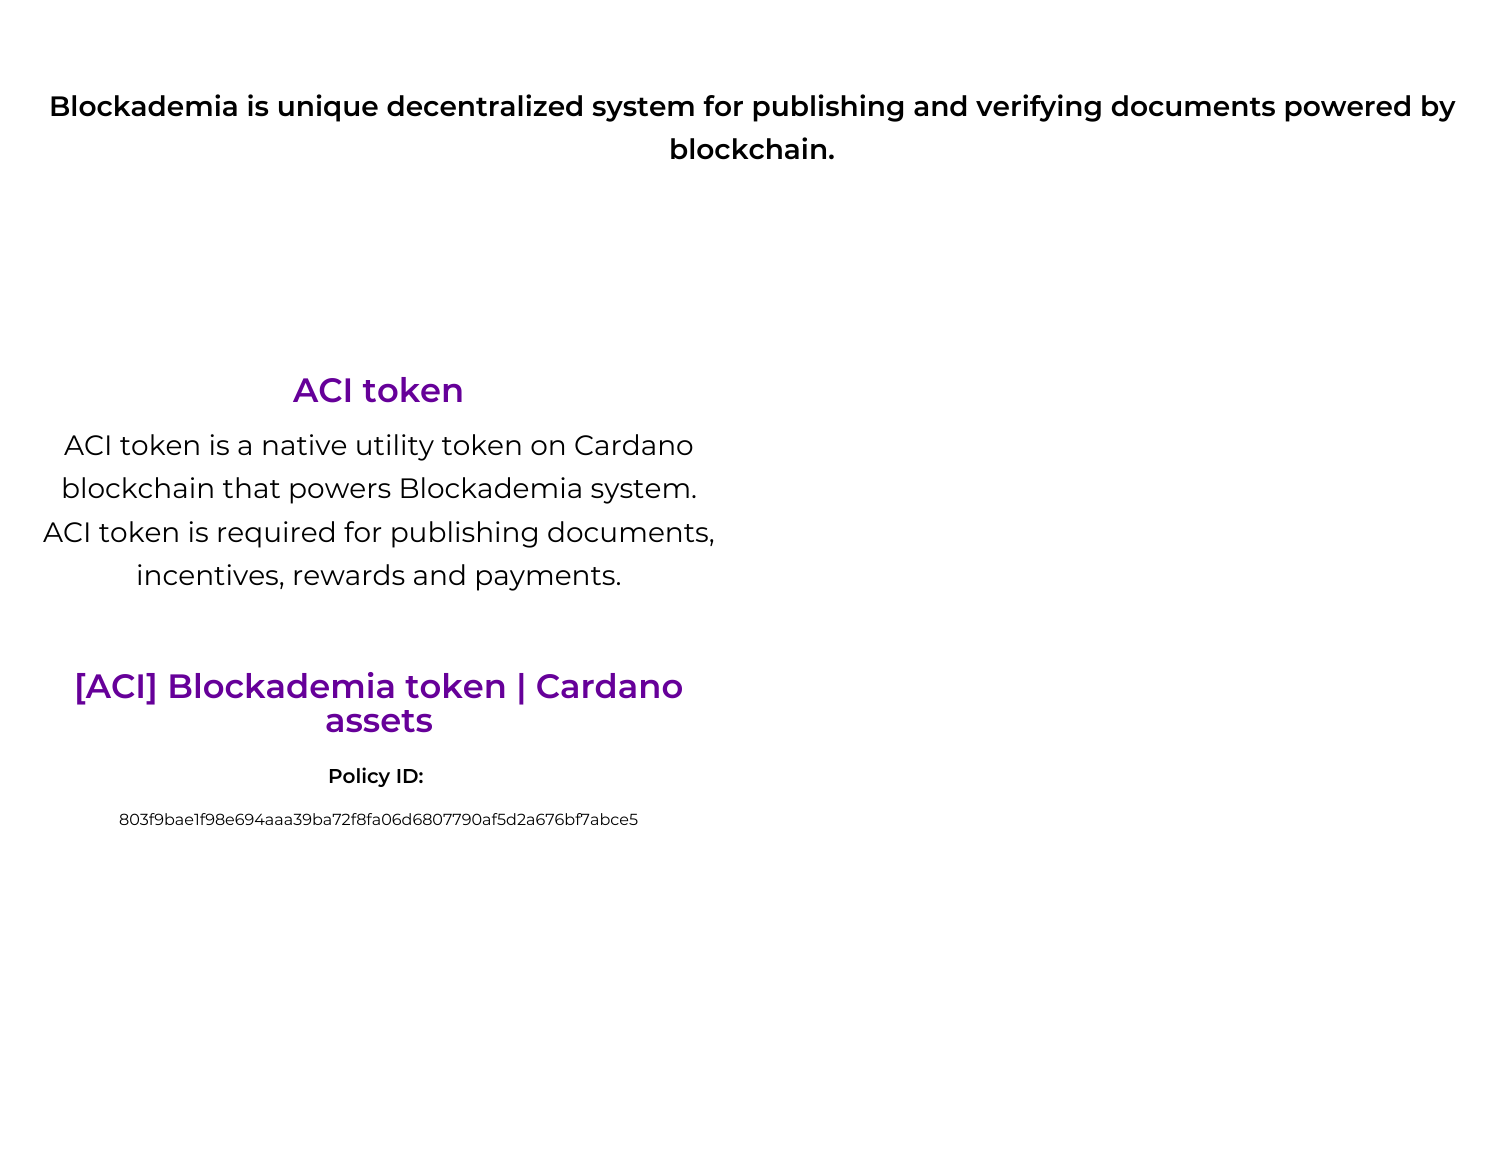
#include <cairo.h>
#include <math.h>
#include <stddef.h>

typedef struct { double x, y; const char *s; } line_t;

static void ink(cairo_t *ctx, unsigned color) {
    cairo_set_source_rgb(ctx, (color >> 16) / 255.0, (color >> 8 & 255) / 255.0, (color & 255) / 255.0);
}

int main(void) {
    cairo_surface_t *surface = cairo_image_surface_create(CAIRO_FORMAT_RGB24, 1503, 1164);
    cairo_t *ctx = cairo_create(surface);
    cairo_font_options_t *options = cairo_font_options_create();
    cairo_font_options_set_hint_metrics(options, CAIRO_HINT_METRICS_OFF);
    cairo_font_options_set_hint_style(options, CAIRO_HINT_STYLE_NONE);
    cairo_set_font_options(ctx, options);
    cairo_set_miter_limit(ctx, 4);
    ink(ctx, 0xFFFFFF);
    cairo_paint(ctx);
    cairo_select_font_face(ctx, "Montserrat SemiBold", CAIRO_FONT_SLANT_NORMAL, CAIRO_FONT_WEIGHT_NORMAL);
    cairo_set_font_size(ctx, 28);
    ink(ctx, 0x000000);
    cairo_move_to(ctx, 49, 116);
    cairo_show_text(ctx, "Blockademia is unique decentralized system for publishing and verifying documents powered by");
    cairo_move_to(ctx, 669, 159);
    cairo_show_text(ctx, "blockchain.");
    cairo_set_font_size(ctx, 33.75);
    ink(ctx, 0x660099);
    cairo_move_to(ctx, 293, 402);
    cairo_show_text(ctx, "ACI token");
    cairo_select_font_face(ctx, "Montserrat", CAIRO_FONT_SLANT_NORMAL, CAIRO_FONT_WEIGHT_NORMAL);
    cairo_set_font_size(ctx, 28);
    ink(ctx, 0x000000);
    {
        static const line_t items[] = {
            {64, 455, "ACI token is a native utility token on Cardano"},
            {61, 498, "blockchain that powers Blockademia system."},
            {43, 542, "ACI token is required for publishing documents,"},
            {136, 585, "incentives, rewards and payments."},
        };
        for (size_t i = 0; i < sizeof items / sizeof *items; i++) {
            cairo_move_to(ctx, items[i].x, items[i].y);
            cairo_show_text(ctx, items[i].s);
        }
    }
    cairo_select_font_face(ctx, "Montserrat SemiBold", CAIRO_FONT_SLANT_NORMAL, CAIRO_FONT_WEIGHT_NORMAL);
    cairo_set_font_size(ctx, 33.75);
    ink(ctx, 0x660099);
    cairo_move_to(ctx, 74, 698);
    cairo_show_text(ctx, "[ACI] Blockademia token | Cardano");
    cairo_move_to(ctx, 325, 732);
    cairo_show_text(ctx, "assets");
    cairo_set_font_size(ctx, 20);
    ink(ctx, 0x000000);
    cairo_move_to(ctx, 328, 783);
    cairo_show_text(ctx, "Policy ID:");
    cairo_select_font_face(ctx, "Montserrat", CAIRO_FONT_SLANT_NORMAL, CAIRO_FONT_WEIGHT_NORMAL);
    cairo_set_font_size(ctx, 16);
    cairo_move_to(ctx, 119, 825);
    cairo_show_text(ctx, "803f9bae1f98e694aaa39ba72f8fa06d6807790af5d2a676bf7abce5");
    cairo_surface_write_to_png(surface, "image.png");
    cairo_font_options_destroy(options);
    cairo_destroy(ctx);
    cairo_surface_destroy(surface);
    return 0;
}
